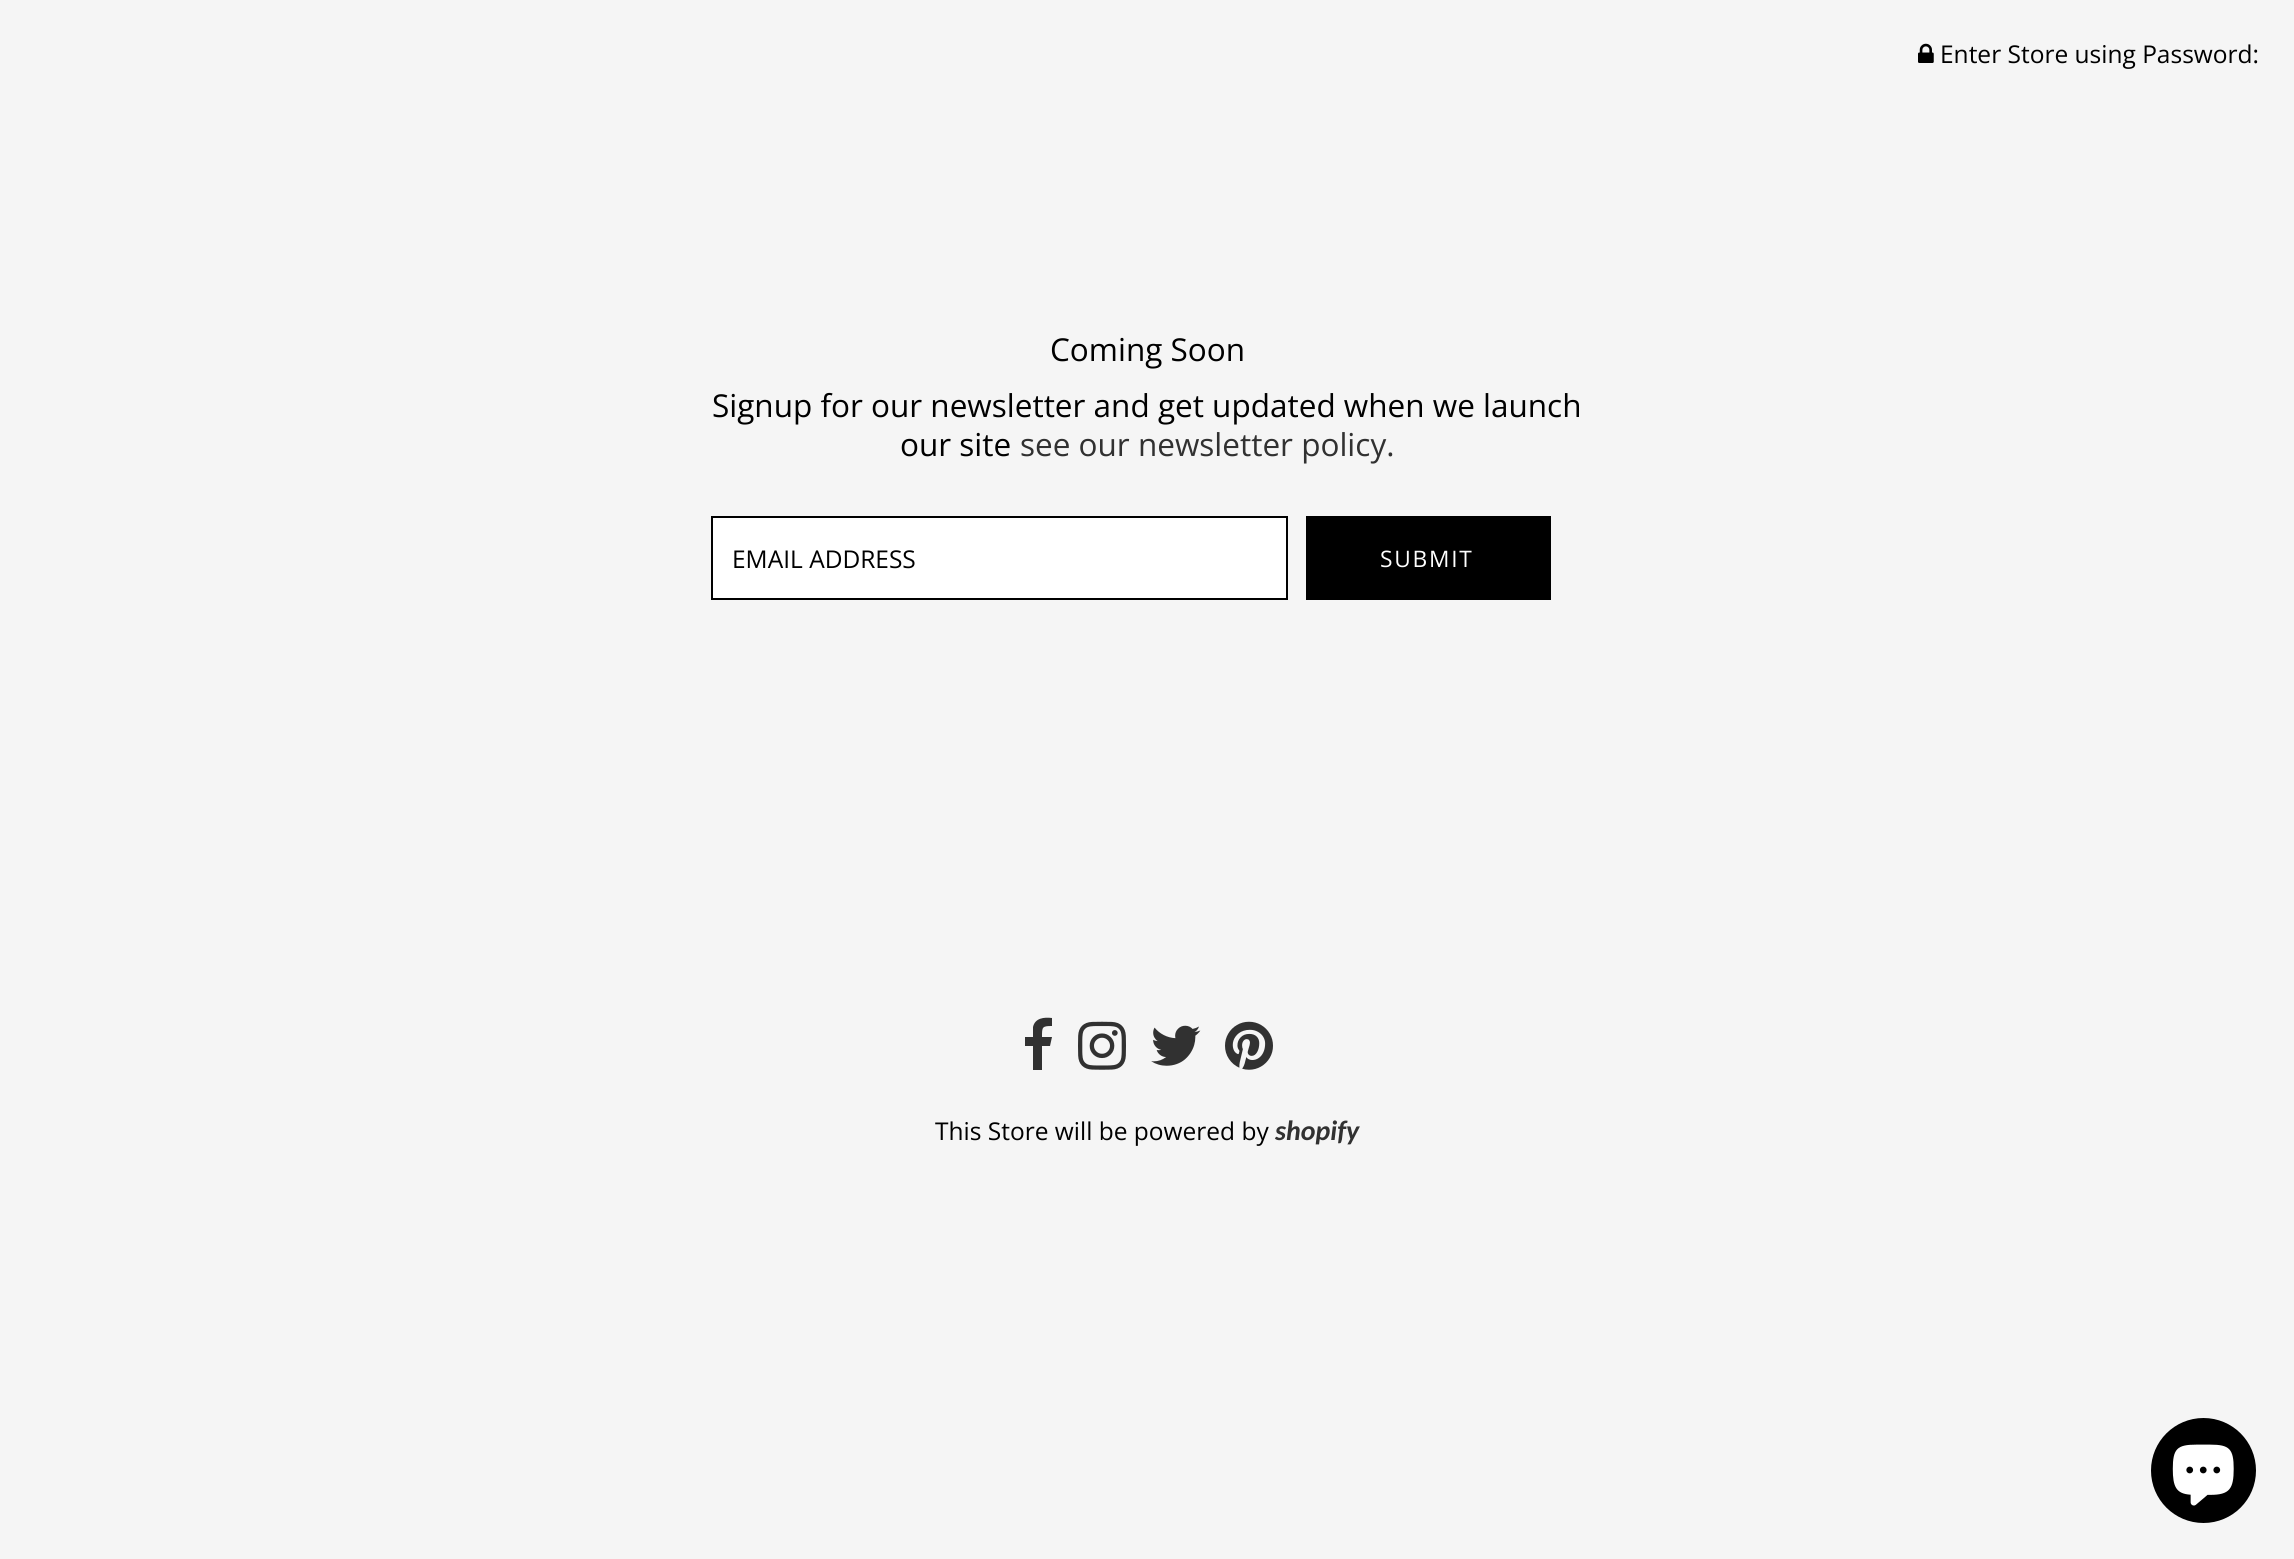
#include <cairo.h>
#include <math.h>
#include <stddef.h>

typedef struct { double x, y; const char *s; } line_t;

static void ink(cairo_t *ctx, unsigned color) {
    cairo_set_source_rgb(ctx, (color >> 16) / 255.0, (color >> 8 & 255) / 255.0, (color & 255) / 255.0);
}

static void write_spaced(cairo_t *ctx, double x, double y, const char *s, double letter, double word) {
    cairo_move_to(ctx, x, y);
    while (*s) {
        char ch[5] = {0};
        int n = 0;
        do ch[n++] = *s++; while ((*s & 0xC0) == 0x80);
        cairo_show_text(ctx, ch);
        cairo_rel_move_to(ctx, letter + word * (*ch == ' '), 0);
    }
}

static void paste(cairo_t *ctx, const char *path, double x, double y, double w, double h) {
    cairo_surface_t *image = cairo_image_surface_create_from_png(path);
    cairo_save(ctx);
    cairo_set_source_surface(ctx, image, x, y);
    cairo_rectangle(ctx, x, y, w, h);
    cairo_fill(ctx);
    cairo_restore(ctx);
    cairo_surface_destroy(image);
}

int main(void) {
    cairo_surface_t *surface = cairo_image_surface_create(CAIRO_FORMAT_RGB24, 2294, 1559);
    cairo_t *ctx = cairo_create(surface);
    cairo_font_options_t *options = cairo_font_options_create();
    cairo_font_options_set_hint_metrics(options, CAIRO_HINT_METRICS_OFF);
    cairo_font_options_set_hint_style(options, CAIRO_HINT_STYLE_NONE);
    cairo_set_font_options(ctx, options);
    cairo_set_miter_limit(ctx, 4);
    ink(ctx, 0xF5F5F5);
    cairo_paint(ctx);
    paste(ctx, "media/1.png", 1918, 43, 16, 20);
    cairo_select_font_face(ctx, "Open Sans", CAIRO_FONT_SLANT_NORMAL, CAIRO_FONT_WEIGHT_NORMAL);
    cairo_set_font_size(ctx, 24.5);
    ink(ctx, 0x000000);
    cairo_move_to(ctx, 1940, 63);
    cairo_show_text(ctx, "Enter Store using Password:");
    cairo_set_font_size(ctx, 31.5);
    {
        static const line_t items[] = {
            {1050, 361, "Coming Soon"},
            {712, 417, "Signup for our newsletter and get updated when we launch"},
            {900, 456, "our site"},
        };
        for (size_t i = 0; i < sizeof items / sizeof *items; i++) {
            cairo_move_to(ctx, items[i].x, items[i].y);
            cairo_show_text(ctx, items[i].s);
        }
    }
    ink(ctx, 0x313131);
    cairo_move_to(ctx, 1020, 456);
    cairo_show_text(ctx, "see our newsletter policy.");
    ink(ctx, 0xFFFFFF);
    cairo_rectangle(ctx, 712, 517, 575, 82);
    cairo_fill_preserve(ctx);
    ink(ctx, 0x000000);
    cairo_stroke(ctx);
    cairo_set_font_size(ctx, 24.5);
    cairo_move_to(ctx, 732, 568);
    cairo_show_text(ctx, "EMAIL ADDRESS");
    cairo_rectangle(ctx, 1306, 516, 245, 84);
    cairo_fill(ctx);
    cairo_set_font_size(ctx, 22.75);
    ink(ctx, 0xFFFFFF);
    write_spaced(ctx, 1380, 567, "SUBMIT", 1.75, 0);
    ink(ctx, 0x313131);
    cairo_new_path(ctx);
    cairo_move_to(ctx, 1052, 1018);
    cairo_line_to(ctx, 1052, 1026);
    cairo_curve_to(ctx, 1042, 1026, 1042, 1027, 1042, 1037);
    cairo_line_to(ctx, 1052, 1037);
    cairo_line_to(ctx, 1050, 1046);
    cairo_line_to(ctx, 1042, 1046);
    cairo_line_to(ctx, 1042, 1070);
    cairo_line_to(ctx, 1033, 1070);
    cairo_line_to(ctx, 1033, 1046);
    cairo_line_to(ctx, 1025, 1046);
    cairo_line_to(ctx, 1025, 1037);
    cairo_line_to(ctx, 1033, 1037);
    cairo_line_to(ctx, 1033, 1027);
    cairo_curve_to(ctx, 1035, 1018, 1044, 1017, 1052, 1018);
    cairo_close_path(ctx);
    cairo_fill(ctx);
    paste(ctx, "media/2.png", 1078, 1021, 48, 49);
    paste(ctx, "media/3.png", 1151, 1025, 50, 41);
    paste(ctx, "media/4.png", 1225, 1021, 48, 49);
    cairo_set_font_size(ctx, 24.5);
    ink(ctx, 0x000000);
    cairo_move_to(ctx, 935, 1140);
    cairo_show_text(ctx, "This Store will be powered by");
    cairo_select_font_face(ctx, "Carlito", CAIRO_FONT_SLANT_ITALIC, CAIRO_FONT_WEIGHT_BOLD);
    cairo_set_font_size(ctx, 28);
    ink(ctx, 0x313131);
    cairo_move_to(ctx, 1275, 1140);
    cairo_show_text(ctx, "shopify");
    ink(ctx, 0x000000);
    cairo_new_path(ctx);
    cairo_arc(ctx, 2203.5, 1470.5, 52.5, 0, 2 * M_PI);
    cairo_fill(ctx);
    paste(ctx, "media/5.png", 2172, 1444, 62, 62);
    cairo_surface_write_to_png(surface, "image.png");
    cairo_font_options_destroy(options);
    cairo_destroy(ctx);
    cairo_surface_destroy(surface);
    return 0;
}
